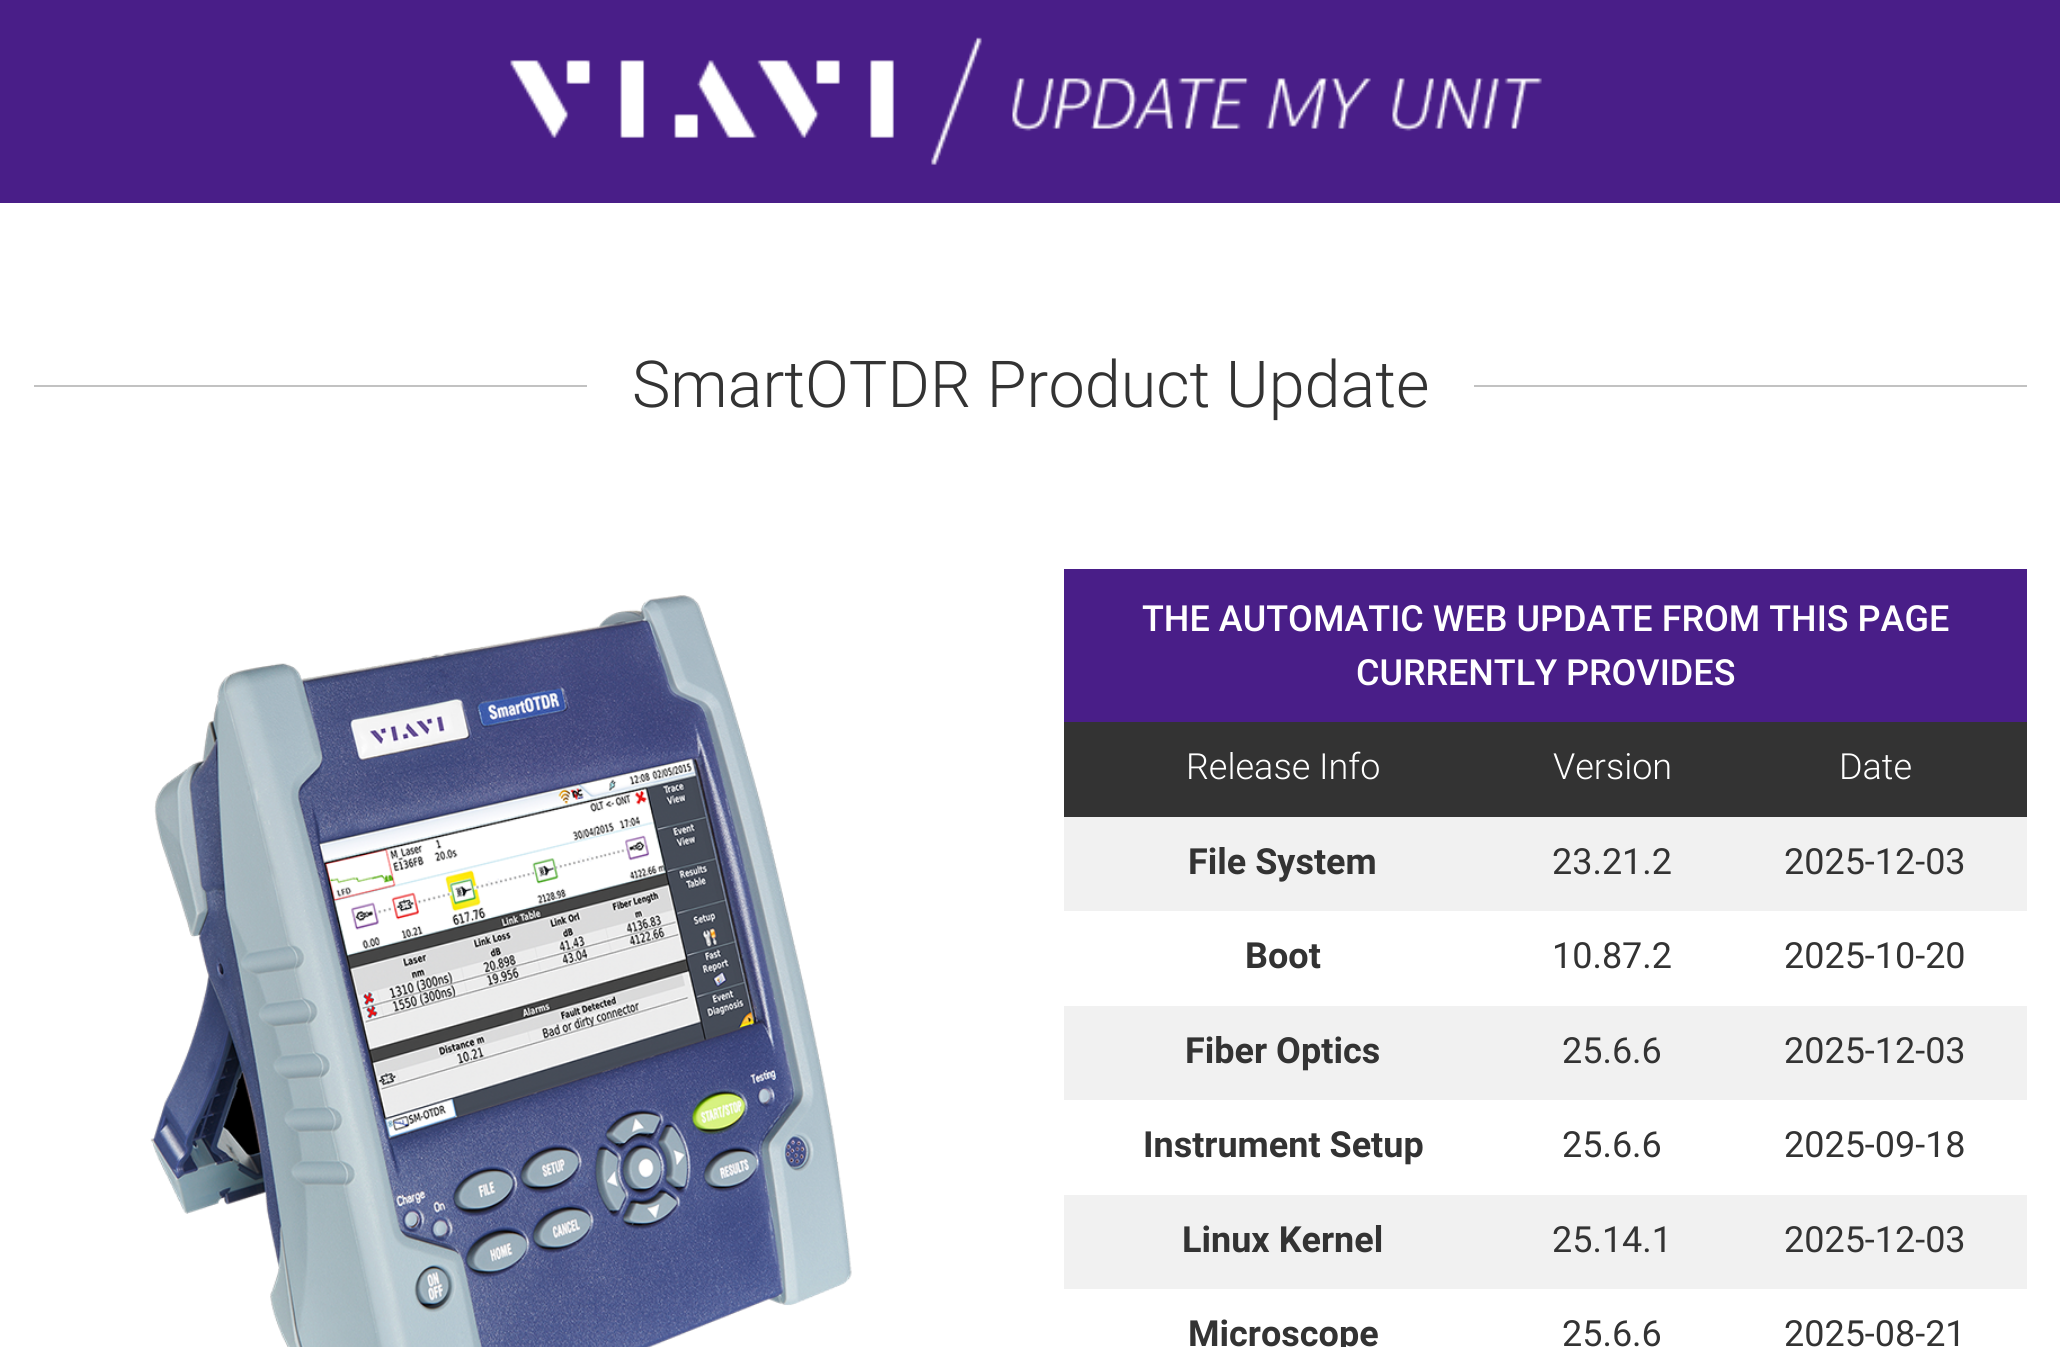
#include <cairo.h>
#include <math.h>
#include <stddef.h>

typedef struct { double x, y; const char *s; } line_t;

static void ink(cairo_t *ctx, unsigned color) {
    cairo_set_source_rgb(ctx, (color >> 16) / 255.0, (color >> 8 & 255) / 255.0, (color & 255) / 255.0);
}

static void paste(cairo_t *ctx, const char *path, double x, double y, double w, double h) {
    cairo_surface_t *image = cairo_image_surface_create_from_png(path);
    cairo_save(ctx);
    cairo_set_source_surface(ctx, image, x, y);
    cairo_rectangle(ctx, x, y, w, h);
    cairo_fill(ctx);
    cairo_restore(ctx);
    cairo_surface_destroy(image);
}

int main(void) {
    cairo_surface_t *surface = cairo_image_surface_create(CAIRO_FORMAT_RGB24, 2060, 1347);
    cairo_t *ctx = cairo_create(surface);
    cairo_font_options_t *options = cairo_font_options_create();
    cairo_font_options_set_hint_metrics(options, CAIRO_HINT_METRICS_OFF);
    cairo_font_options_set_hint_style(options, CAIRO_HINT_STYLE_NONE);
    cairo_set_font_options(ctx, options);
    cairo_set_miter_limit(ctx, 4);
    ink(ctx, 0xFFFFFF);
    cairo_paint(ctx);
    ink(ctx, 0x491E88);
    cairo_rectangle(ctx, 0, 0, 2060, 203);
    cairo_fill(ctx);
    paste(ctx, "media/1.png", 510, 37, 1032, 128);
    ink(ctx, 0xC2C2C2);
    cairo_rectangle(ctx, 34, 385, 553, 2);
    cairo_fill(ctx);
    cairo_select_font_face(ctx, "Roboto Light", CAIRO_FONT_SLANT_NORMAL, CAIRO_FONT_WEIGHT_NORMAL);
    cairo_set_font_size(ctx, 64.75);
    ink(ctx, 0x333333);
    cairo_move_to(ctx, 632, 407);
    cairo_show_text(ctx, "SmartOTDR Product Update");
    ink(ctx, 0xC2C2C2);
    cairo_rectangle(ctx, 1474, 385, 553, 2);
    cairo_fill(ctx);
    paste(ctx, "media/2.png", 150, 595, 702, 752);
    ink(ctx, 0x491E88);
    cairo_rectangle(ctx, 1064, 569, 963, 153);
    cairo_fill(ctx);
    cairo_select_font_face(ctx, "Roboto Medium", CAIRO_FONT_SLANT_NORMAL, CAIRO_FONT_WEIGHT_NORMAL);
    cairo_set_font_size(ctx, 36);
    ink(ctx, 0xFFFFFF);
    cairo_move_to(ctx, 1142, 631);
    cairo_show_text(ctx, "THE AUTOMATIC WEB UPDATE FROM THIS PAGE");
    cairo_move_to(ctx, 1356, 685);
    cairo_show_text(ctx, "CURRENTLY PROVIDES");
    ink(ctx, 0x333333);
    cairo_rectangle(ctx, 1064, 722, 963, 95);
    cairo_fill(ctx);
    cairo_select_font_face(ctx, "Roboto Light", CAIRO_FONT_SLANT_NORMAL, CAIRO_FONT_WEIGHT_NORMAL);
    ink(ctx, 0xFFFFFF);
    {
        static const line_t items[] = {
            {1186, 779, "Release Info"},
            {1553, 779, "Version"},
            {1839, 779, "Date"},
        };
        for (size_t i = 0; i < sizeof items / sizeof *items; i++) {
            cairo_move_to(ctx, items[i].x, items[i].y);
            cairo_show_text(ctx, items[i].s);
        }
    }
    ink(ctx, 0xF1F1F1);
    cairo_rectangle(ctx, 1064, 817, 963, 94);
    cairo_fill(ctx);
    cairo_select_font_face(ctx, "Roboto", CAIRO_FONT_SLANT_NORMAL, CAIRO_FONT_WEIGHT_BOLD);
    ink(ctx, 0x333333);
    cairo_move_to(ctx, 1188, 874);
    cairo_show_text(ctx, "File System");
    cairo_select_font_face(ctx, "Roboto", CAIRO_FONT_SLANT_NORMAL, CAIRO_FONT_WEIGHT_NORMAL);
    cairo_move_to(ctx, 1552, 874);
    cairo_show_text(ctx, "23.21.2");
    cairo_move_to(ctx, 1784, 874);
    cairo_show_text(ctx, "2025-12-03");
    cairo_select_font_face(ctx, "Roboto", CAIRO_FONT_SLANT_NORMAL, CAIRO_FONT_WEIGHT_BOLD);
    cairo_move_to(ctx, 1245, 968);
    cairo_show_text(ctx, "Boot");
    cairo_select_font_face(ctx, "Roboto", CAIRO_FONT_SLANT_NORMAL, CAIRO_FONT_WEIGHT_NORMAL);
    cairo_move_to(ctx, 1552, 968);
    cairo_show_text(ctx, "10.87.2");
    cairo_move_to(ctx, 1784, 968);
    cairo_show_text(ctx, "2025-10-20");
    ink(ctx, 0xF1F1F1);
    cairo_rectangle(ctx, 1064, 1006, 963, 94);
    cairo_fill(ctx);
    cairo_select_font_face(ctx, "Roboto", CAIRO_FONT_SLANT_NORMAL, CAIRO_FONT_WEIGHT_BOLD);
    ink(ctx, 0x333333);
    cairo_move_to(ctx, 1185, 1063);
    cairo_show_text(ctx, "Fiber Optics");
    cairo_select_font_face(ctx, "Roboto", CAIRO_FONT_SLANT_NORMAL, CAIRO_FONT_WEIGHT_NORMAL);
    cairo_move_to(ctx, 1562, 1063);
    cairo_show_text(ctx, "25.6.6");
    cairo_move_to(ctx, 1784, 1063);
    cairo_show_text(ctx, "2025-12-03");
    cairo_select_font_face(ctx, "Roboto", CAIRO_FONT_SLANT_NORMAL, CAIRO_FONT_WEIGHT_BOLD);
    cairo_move_to(ctx, 1143, 1157);
    cairo_show_text(ctx, "Instrument Setup");
    cairo_select_font_face(ctx, "Roboto", CAIRO_FONT_SLANT_NORMAL, CAIRO_FONT_WEIGHT_NORMAL);
    cairo_move_to(ctx, 1562, 1157);
    cairo_show_text(ctx, "25.6.6");
    cairo_move_to(ctx, 1784, 1157);
    cairo_show_text(ctx, "2025-09-18");
    ink(ctx, 0xF1F1F1);
    cairo_rectangle(ctx, 1064, 1195, 963, 94);
    cairo_fill(ctx);
    cairo_select_font_face(ctx, "Roboto", CAIRO_FONT_SLANT_NORMAL, CAIRO_FONT_WEIGHT_BOLD);
    ink(ctx, 0x333333);
    cairo_move_to(ctx, 1182, 1252);
    cairo_show_text(ctx, "Linux Kernel");
    cairo_select_font_face(ctx, "Roboto", CAIRO_FONT_SLANT_NORMAL, CAIRO_FONT_WEIGHT_NORMAL);
    cairo_move_to(ctx, 1552, 1252);
    cairo_show_text(ctx, "25.14.1");
    cairo_move_to(ctx, 1784, 1252);
    cairo_show_text(ctx, "2025-12-03");
    cairo_select_font_face(ctx, "Roboto", CAIRO_FONT_SLANT_NORMAL, CAIRO_FONT_WEIGHT_BOLD);
    cairo_move_to(ctx, 1188, 1346);
    cairo_show_text(ctx, "Microscope");
    cairo_select_font_face(ctx, "Roboto", CAIRO_FONT_SLANT_NORMAL, CAIRO_FONT_WEIGHT_NORMAL);
    cairo_move_to(ctx, 1562, 1346);
    cairo_show_text(ctx, "25.6.6");
    cairo_move_to(ctx, 1784, 1346);
    cairo_show_text(ctx, "2025-08-21");
    cairo_surface_write_to_png(surface, "image.png");
    cairo_font_options_destroy(options);
    cairo_destroy(ctx);
    cairo_surface_destroy(surface);
    return 0;
}
